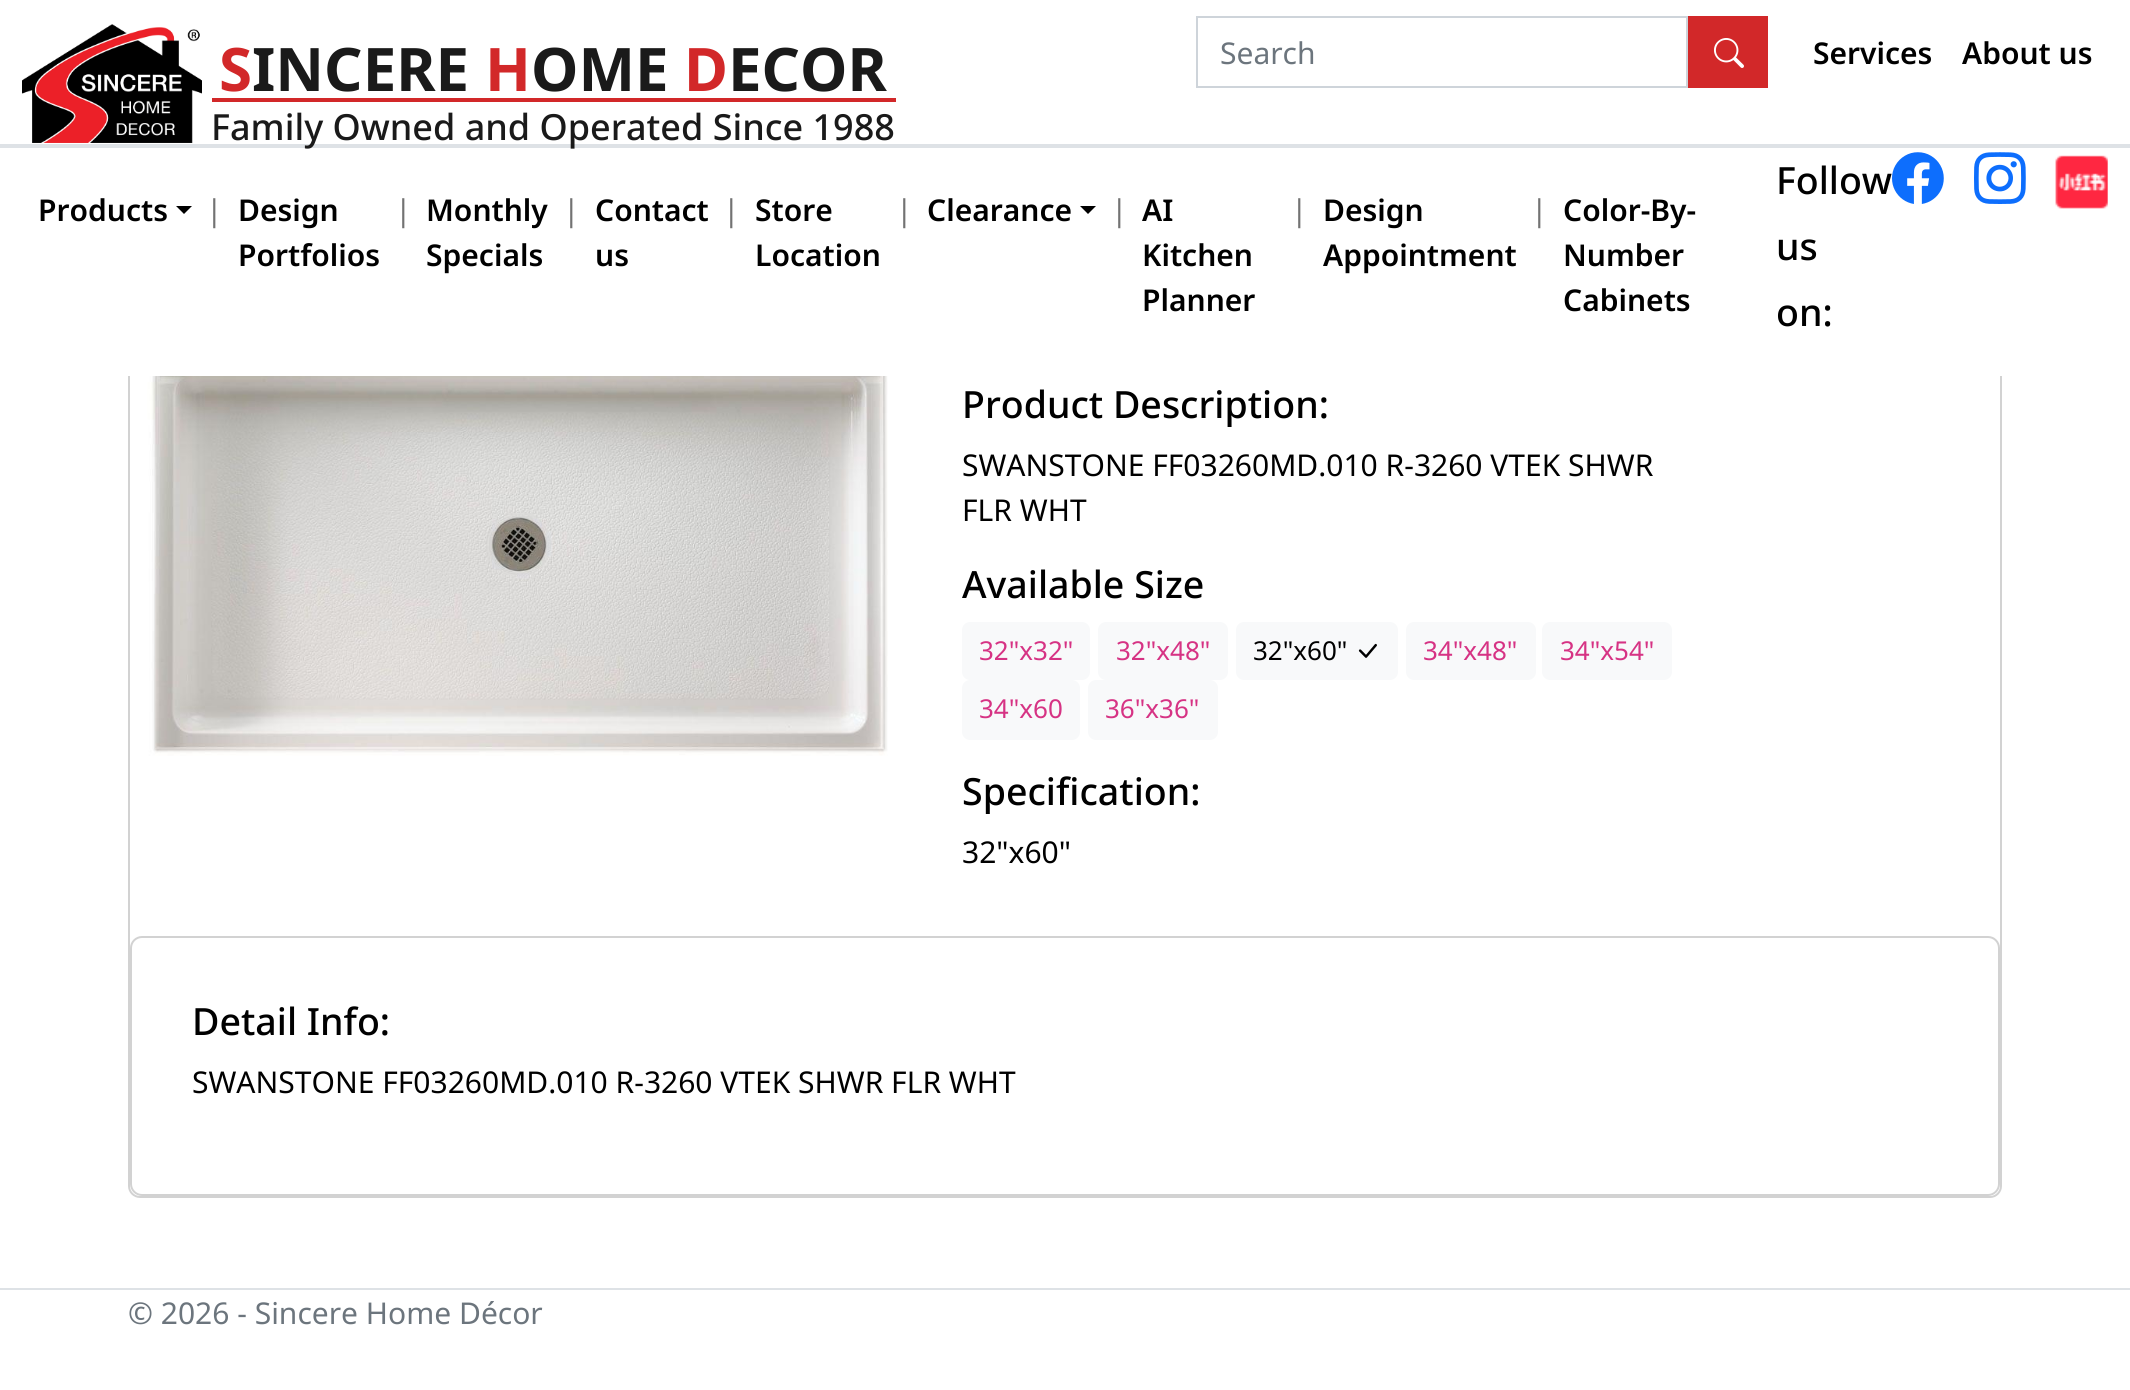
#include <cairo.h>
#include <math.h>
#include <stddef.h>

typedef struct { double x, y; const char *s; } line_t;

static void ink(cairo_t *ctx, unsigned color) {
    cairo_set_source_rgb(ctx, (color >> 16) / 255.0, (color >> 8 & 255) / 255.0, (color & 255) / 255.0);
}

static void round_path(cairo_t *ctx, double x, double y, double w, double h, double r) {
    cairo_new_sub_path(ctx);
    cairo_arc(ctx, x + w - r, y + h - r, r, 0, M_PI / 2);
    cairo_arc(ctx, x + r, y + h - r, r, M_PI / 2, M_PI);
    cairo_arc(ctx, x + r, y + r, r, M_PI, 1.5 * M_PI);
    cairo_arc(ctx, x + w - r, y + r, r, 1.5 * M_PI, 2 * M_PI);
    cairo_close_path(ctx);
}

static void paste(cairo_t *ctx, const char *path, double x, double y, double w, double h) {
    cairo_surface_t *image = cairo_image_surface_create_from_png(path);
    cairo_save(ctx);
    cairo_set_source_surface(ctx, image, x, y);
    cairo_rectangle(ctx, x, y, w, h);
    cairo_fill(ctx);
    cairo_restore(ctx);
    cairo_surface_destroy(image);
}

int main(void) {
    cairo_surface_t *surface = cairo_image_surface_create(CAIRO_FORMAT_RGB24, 2130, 1390);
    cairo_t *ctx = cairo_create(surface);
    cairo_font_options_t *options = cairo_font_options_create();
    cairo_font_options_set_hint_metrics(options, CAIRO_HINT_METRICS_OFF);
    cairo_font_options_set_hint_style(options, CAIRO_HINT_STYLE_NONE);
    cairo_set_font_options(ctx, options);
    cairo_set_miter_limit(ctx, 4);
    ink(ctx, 0xFFFFFF);
    cairo_paint(ctx);
    round_path(ctx, 129, 157, 1872, 1040, 11);
    ink(ctx, 0xD2D2D2);
    cairo_stroke(ctx);
    ink(ctx, 0xFFFFFF);
    cairo_rectangle(ctx, 128, 156, 1874, 220);
    cairo_fill(ctx);
    ink(ctx, 0xDEE2E6);
    cairo_rectangle(ctx, 0, 144, 2130, 4);
    cairo_fill(ctx);
    paste(ctx, "media/1.png", 22, 24, 180, 119);
    cairo_select_font_face(ctx, "Noto Sans", CAIRO_FONT_SLANT_NORMAL, CAIRO_FONT_WEIGHT_BOLD);
    cairo_set_font_size(ctx, 60);
    ink(ctx, 0xD22829);
    cairo_move_to(ctx, 219, 91);
    cairo_show_text(ctx, "S");
    ink(ctx, 0x1A1A1A);
    cairo_move_to(ctx, 252, 91);
    cairo_show_text(ctx, "INCERE");
    ink(ctx, 0xD22829);
    cairo_move_to(ctx, 485, 91);
    cairo_show_text(ctx, "H");
    ink(ctx, 0x1A1A1A);
    cairo_move_to(ctx, 531, 91);
    cairo_show_text(ctx, "OME");
    ink(ctx, 0xD22829);
    cairo_move_to(ctx, 684, 91);
    cairo_show_text(ctx, "D");
    ink(ctx, 0x1A1A1A);
    cairo_move_to(ctx, 728, 91);
    cairo_show_text(ctx, "ECOR");
    ink(ctx, 0xD22829);
    cairo_rectangle(ctx, 212, 98, 684, 4);
    cairo_fill(ctx);
    cairo_select_font_face(ctx, "Noto Sans Medium", CAIRO_FONT_SLANT_NORMAL, CAIRO_FONT_WEIGHT_NORMAL);
    cairo_set_font_size(ctx, 36);
    ink(ctx, 0x1A1A1A);
    cairo_move_to(ctx, 211, 140);
    cairo_show_text(ctx, "Family Owned and Operated Since 1988");
    cairo_rectangle(ctx, 1197, 17, 490, 70);
    ink(ctx, 0xCED4DA);
    cairo_stroke(ctx);
    cairo_select_font_face(ctx, "Noto Sans", CAIRO_FONT_SLANT_NORMAL, CAIRO_FONT_WEIGHT_NORMAL);
    cairo_set_font_size(ctx, 30);
    ink(ctx, 0x6C757D);
    cairo_move_to(ctx, 1220, 64);
    cairo_show_text(ctx, "Search");
    ink(ctx, 0xD22829);
    cairo_rectangle(ctx, 1688, 16, 80, 72);
    cairo_fill(ctx);
    paste(ctx, "media/2.png", 1714, 38, 30, 30);
    cairo_select_font_face(ctx, "Noto Sans SemiBold", CAIRO_FONT_SLANT_NORMAL, CAIRO_FONT_WEIGHT_NORMAL);
    ink(ctx, 0x000000);
    {
        static const line_t items[] = {
            {1813, 64, "Services"},
            {1962, 64, "About us"},
            {38, 221, "Products"},
        };
        for (size_t i = 0; i < sizeof items / sizeof *items; i++) {
            cairo_move_to(ctx, items[i].x, items[i].y);
            cairo_show_text(ctx, items[i].s);
        }
    }
    cairo_new_path(ctx);
    cairo_move_to(ctx, 176, 206);
    cairo_line_to(ctx, 192, 206);
    cairo_line_to(ctx, 184, 214);
    cairo_close_path(ctx);
    cairo_fill(ctx);
    cairo_select_font_face(ctx, "Noto Sans", CAIRO_FONT_SLANT_NORMAL, CAIRO_FONT_WEIGHT_NORMAL);
    ink(ctx, 0x737373);
    cairo_move_to(ctx, 206, 221);
    cairo_show_text(ctx, "|");
    cairo_select_font_face(ctx, "Noto Sans SemiBold", CAIRO_FONT_SLANT_NORMAL, CAIRO_FONT_WEIGHT_NORMAL);
    ink(ctx, 0x000000);
    cairo_move_to(ctx, 238, 221);
    cairo_show_text(ctx, "Design");
    cairo_move_to(ctx, 238, 266);
    cairo_show_text(ctx, "Portfolios");
    cairo_select_font_face(ctx, "Noto Sans", CAIRO_FONT_SLANT_NORMAL, CAIRO_FONT_WEIGHT_NORMAL);
    ink(ctx, 0x737373);
    cairo_move_to(ctx, 395, 221);
    cairo_show_text(ctx, "|");
    cairo_select_font_face(ctx, "Noto Sans SemiBold", CAIRO_FONT_SLANT_NORMAL, CAIRO_FONT_WEIGHT_NORMAL);
    ink(ctx, 0x000000);
    cairo_move_to(ctx, 426, 221);
    cairo_show_text(ctx, "Monthly");
    cairo_move_to(ctx, 426, 266);
    cairo_show_text(ctx, "Specials");
    cairo_select_font_face(ctx, "Noto Sans", CAIRO_FONT_SLANT_NORMAL, CAIRO_FONT_WEIGHT_NORMAL);
    ink(ctx, 0x737373);
    cairo_move_to(ctx, 563, 221);
    cairo_show_text(ctx, "|");
    cairo_select_font_face(ctx, "Noto Sans SemiBold", CAIRO_FONT_SLANT_NORMAL, CAIRO_FONT_WEIGHT_NORMAL);
    ink(ctx, 0x000000);
    cairo_move_to(ctx, 595, 221);
    cairo_show_text(ctx, "Contact");
    cairo_move_to(ctx, 595, 266);
    cairo_show_text(ctx, "us");
    cairo_select_font_face(ctx, "Noto Sans", CAIRO_FONT_SLANT_NORMAL, CAIRO_FONT_WEIGHT_NORMAL);
    ink(ctx, 0x737373);
    cairo_move_to(ctx, 723, 221);
    cairo_show_text(ctx, "|");
    cairo_select_font_face(ctx, "Noto Sans SemiBold", CAIRO_FONT_SLANT_NORMAL, CAIRO_FONT_WEIGHT_NORMAL);
    ink(ctx, 0x000000);
    cairo_move_to(ctx, 755, 221);
    cairo_show_text(ctx, "Store");
    cairo_move_to(ctx, 755, 266);
    cairo_show_text(ctx, "Location");
    cairo_select_font_face(ctx, "Noto Sans", CAIRO_FONT_SLANT_NORMAL, CAIRO_FONT_WEIGHT_NORMAL);
    ink(ctx, 0x737373);
    cairo_move_to(ctx, 896, 221);
    cairo_show_text(ctx, "|");
    cairo_select_font_face(ctx, "Noto Sans SemiBold", CAIRO_FONT_SLANT_NORMAL, CAIRO_FONT_WEIGHT_NORMAL);
    ink(ctx, 0x000000);
    cairo_move_to(ctx, 927, 221);
    cairo_show_text(ctx, "Clearance");
    cairo_new_path(ctx);
    cairo_move_to(ctx, 1080, 206);
    cairo_line_to(ctx, 1096, 206);
    cairo_line_to(ctx, 1088, 214);
    cairo_close_path(ctx);
    cairo_fill(ctx);
    cairo_select_font_face(ctx, "Noto Sans", CAIRO_FONT_SLANT_NORMAL, CAIRO_FONT_WEIGHT_NORMAL);
    ink(ctx, 0x737373);
    cairo_move_to(ctx, 1111, 221);
    cairo_show_text(ctx, "|");
    cairo_select_font_face(ctx, "Noto Sans SemiBold", CAIRO_FONT_SLANT_NORMAL, CAIRO_FONT_WEIGHT_NORMAL);
    ink(ctx, 0x000000);
    {
        static const line_t items[] = {
            {1142, 221, "AI"},
            {1142, 266, "Kitchen"},
            {1142, 311, "Planner"},
        };
        for (size_t i = 0; i < sizeof items / sizeof *items; i++) {
            cairo_move_to(ctx, items[i].x, items[i].y);
            cairo_show_text(ctx, items[i].s);
        }
    }
    cairo_select_font_face(ctx, "Noto Sans", CAIRO_FONT_SLANT_NORMAL, CAIRO_FONT_WEIGHT_NORMAL);
    ink(ctx, 0x737373);
    cairo_move_to(ctx, 1291, 221);
    cairo_show_text(ctx, "|");
    cairo_select_font_face(ctx, "Noto Sans SemiBold", CAIRO_FONT_SLANT_NORMAL, CAIRO_FONT_WEIGHT_NORMAL);
    ink(ctx, 0x000000);
    cairo_move_to(ctx, 1323, 221);
    cairo_show_text(ctx, "Design");
    cairo_move_to(ctx, 1323, 266);
    cairo_show_text(ctx, "Appointment");
    cairo_select_font_face(ctx, "Noto Sans", CAIRO_FONT_SLANT_NORMAL, CAIRO_FONT_WEIGHT_NORMAL);
    ink(ctx, 0x737373);
    cairo_move_to(ctx, 1531, 221);
    cairo_show_text(ctx, "|");
    cairo_select_font_face(ctx, "Noto Sans SemiBold", CAIRO_FONT_SLANT_NORMAL, CAIRO_FONT_WEIGHT_NORMAL);
    ink(ctx, 0x000000);
    {
        static const line_t items[] = {
            {1563, 221, "Color-By-"},
            {1563, 266, "Number"},
            {1563, 311, "Cabinets"},
        };
        for (size_t i = 0; i < sizeof items / sizeof *items; i++) {
            cairo_move_to(ctx, items[i].x, items[i].y);
            cairo_show_text(ctx, items[i].s);
        }
    }
    cairo_select_font_face(ctx, "Noto Sans Medium", CAIRO_FONT_SLANT_NORMAL, CAIRO_FONT_WEIGHT_NORMAL);
    cairo_set_font_size(ctx, 37.5);
    {
        static const line_t items[] = {
            {1776, 194, "Follow"},
            {1776, 260, "us"},
            {1776, 326, "on:"},
        };
        for (size_t i = 0; i < sizeof items / sizeof *items; i++) {
            cairo_move_to(ctx, items[i].x, items[i].y);
            cairo_show_text(ctx, items[i].s);
        }
    }
    paste(ctx, "media/3.png", 1892, 152, 52, 52);
    paste(ctx, "media/4.png", 1974, 152, 52, 52);
    paste(ctx, "media/5.png", 2055, 155, 53, 54);
    paste(ctx, "media/6.png", 130, 376, 758, 380);
    cairo_move_to(ctx, 962, 418);
    cairo_show_text(ctx, "Product Description:");
    cairo_select_font_face(ctx, "Noto Sans", CAIRO_FONT_SLANT_NORMAL, CAIRO_FONT_WEIGHT_NORMAL);
    cairo_set_font_size(ctx, 30);
    cairo_move_to(ctx, 962, 476);
    cairo_show_text(ctx, "SWANSTONE FF03260MD.010 R-3260 VTEK SHWR");
    cairo_move_to(ctx, 962, 521);
    cairo_show_text(ctx, "FLR WHT");
    cairo_select_font_face(ctx, "Noto Sans Medium", CAIRO_FONT_SLANT_NORMAL, CAIRO_FONT_WEIGHT_NORMAL);
    cairo_set_font_size(ctx, 37.5);
    cairo_move_to(ctx, 962, 598);
    cairo_show_text(ctx, "Available Size");
    ink(ctx, 0xF8F9FA);
    round_path(ctx, 962, 622, 128, 58, 8);
    cairo_fill(ctx);
    cairo_select_font_face(ctx, "Noto Sans", CAIRO_FONT_SLANT_NORMAL, CAIRO_FONT_WEIGHT_NORMAL);
    cairo_set_font_size(ctx, 26);
    ink(ctx, 0xD63384);
    cairo_move_to(ctx, 979, 660);
    cairo_show_text(ctx, "32\"x32\"");
    ink(ctx, 0xF8F9FA);
    round_path(ctx, 1098, 622, 130, 58, 8);
    cairo_fill(ctx);
    ink(ctx, 0xD63384);
    cairo_move_to(ctx, 1116, 660);
    cairo_show_text(ctx, "32\"x48\"");
    ink(ctx, 0xF8F9FA);
    round_path(ctx, 1236, 622, 162, 58, 8);
    cairo_fill(ctx);
    ink(ctx, 0x000000);
    cairo_move_to(ctx, 1253, 660);
    cairo_show_text(ctx, "32\"x60\"");
    paste(ctx, "media/7.png", 1358, 643, 19, 15);
    ink(ctx, 0xF8F9FA);
    round_path(ctx, 1406, 622, 130, 58, 8);
    cairo_fill(ctx);
    ink(ctx, 0xD63384);
    cairo_move_to(ctx, 1423, 660);
    cairo_show_text(ctx, "34\"x48\"");
    ink(ctx, 0xF8F9FA);
    round_path(ctx, 1542, 622, 130, 58, 8);
    cairo_fill(ctx);
    ink(ctx, 0xD63384);
    cairo_move_to(ctx, 1560, 660);
    cairo_show_text(ctx, "34\"x54\"");
    ink(ctx, 0xF8F9FA);
    round_path(ctx, 962, 680, 118, 60, 8);
    cairo_fill(ctx);
    ink(ctx, 0xD63384);
    cairo_move_to(ctx, 979, 718);
    cairo_show_text(ctx, "34\"x60");
    ink(ctx, 0xF8F9FA);
    round_path(ctx, 1088, 680, 130, 60, 8);
    cairo_fill(ctx);
    ink(ctx, 0xD63384);
    cairo_move_to(ctx, 1105, 718);
    cairo_show_text(ctx, "36\"x36\"");
    cairo_select_font_face(ctx, "Noto Sans Medium", CAIRO_FONT_SLANT_NORMAL, CAIRO_FONT_WEIGHT_NORMAL);
    cairo_set_font_size(ctx, 37.5);
    ink(ctx, 0x000000);
    cairo_move_to(ctx, 962, 805);
    cairo_show_text(ctx, "Specification:");
    cairo_select_font_face(ctx, "Noto Sans", CAIRO_FONT_SLANT_NORMAL, CAIRO_FONT_WEIGHT_NORMAL);
    cairo_set_font_size(ctx, 30);
    cairo_move_to(ctx, 962, 863);
    cairo_show_text(ctx, "32\"x60\"");
    ink(ctx, 0xFFFFFF);
    round_path(ctx, 131, 937, 1868, 258, 11);
    cairo_fill_preserve(ctx);
    ink(ctx, 0xD2D2D2);
    cairo_stroke(ctx);
    cairo_select_font_face(ctx, "Noto Sans Medium", CAIRO_FONT_SLANT_NORMAL, CAIRO_FONT_WEIGHT_NORMAL);
    cairo_set_font_size(ctx, 37.5);
    ink(ctx, 0x000000);
    cairo_move_to(ctx, 192, 1035);
    cairo_show_text(ctx, "Detail Info:");
    cairo_select_font_face(ctx, "Noto Sans", CAIRO_FONT_SLANT_NORMAL, CAIRO_FONT_WEIGHT_NORMAL);
    cairo_set_font_size(ctx, 30);
    cairo_move_to(ctx, 192, 1093);
    cairo_show_text(ctx, "SWANSTONE FF03260MD.010 R-3260 VTEK SHWR FLR WHT");
    ink(ctx, 0xDEE2E6);
    cairo_rectangle(ctx, 0, 1288, 2130, 2);
    cairo_fill(ctx);
    ink(ctx, 0x6C757D);
    cairo_move_to(ctx, 128, 1324);
    cairo_show_text(ctx, "© 2026 - Sincere Home Décor");
    cairo_surface_write_to_png(surface, "image.png");
    cairo_font_options_destroy(options);
    cairo_destroy(ctx);
    cairo_surface_destroy(surface);
    return 0;
}
